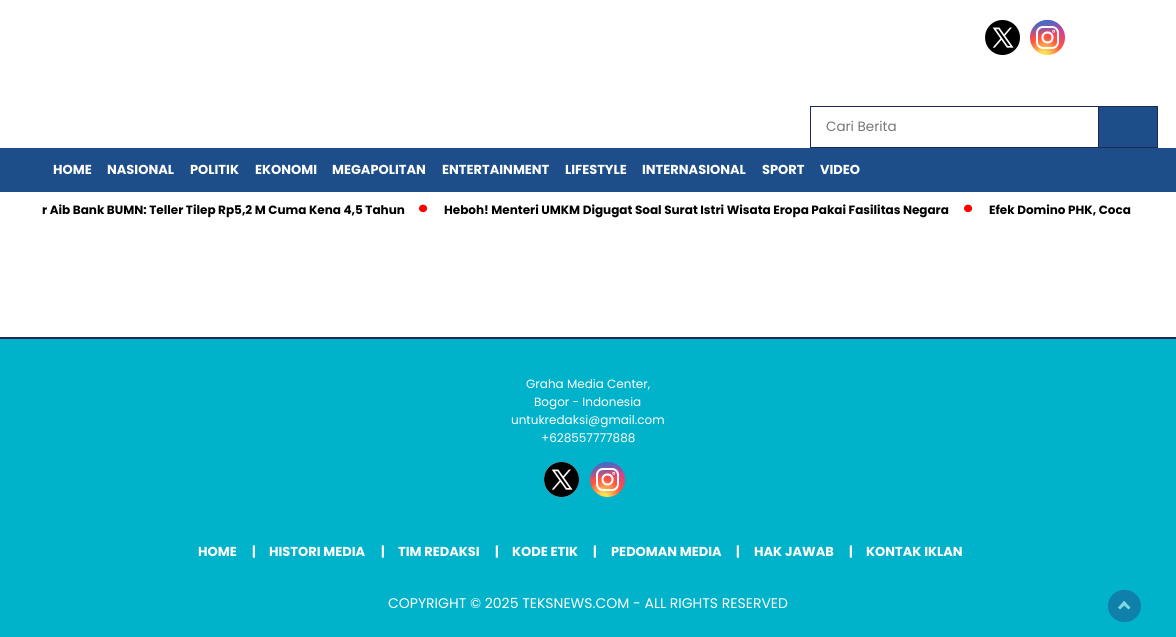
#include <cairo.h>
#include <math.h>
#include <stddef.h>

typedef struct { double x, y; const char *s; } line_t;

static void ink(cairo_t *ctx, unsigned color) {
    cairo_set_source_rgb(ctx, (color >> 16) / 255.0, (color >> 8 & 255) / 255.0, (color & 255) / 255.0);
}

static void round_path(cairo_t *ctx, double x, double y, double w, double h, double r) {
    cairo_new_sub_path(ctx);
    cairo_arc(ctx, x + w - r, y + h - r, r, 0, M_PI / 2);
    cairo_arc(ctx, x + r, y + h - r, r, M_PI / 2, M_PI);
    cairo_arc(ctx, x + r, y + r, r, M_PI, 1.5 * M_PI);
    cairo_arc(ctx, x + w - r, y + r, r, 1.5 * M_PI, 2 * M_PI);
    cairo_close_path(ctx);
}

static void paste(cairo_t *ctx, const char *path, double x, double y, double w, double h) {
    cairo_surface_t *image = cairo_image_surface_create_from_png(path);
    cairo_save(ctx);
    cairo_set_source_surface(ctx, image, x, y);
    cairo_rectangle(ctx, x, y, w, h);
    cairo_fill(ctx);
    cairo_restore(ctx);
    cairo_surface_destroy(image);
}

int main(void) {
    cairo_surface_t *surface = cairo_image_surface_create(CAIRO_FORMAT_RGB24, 1176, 637);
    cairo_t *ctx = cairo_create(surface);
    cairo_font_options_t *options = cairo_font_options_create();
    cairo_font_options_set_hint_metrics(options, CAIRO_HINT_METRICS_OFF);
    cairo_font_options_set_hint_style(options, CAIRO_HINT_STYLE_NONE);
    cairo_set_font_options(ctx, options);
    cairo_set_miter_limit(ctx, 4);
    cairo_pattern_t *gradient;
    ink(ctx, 0xFFFFFF);
    cairo_paint(ctx);
    paste(ctx, "media/1.png", 985, 20, 35, 35);
    gradient = cairo_pattern_create_radial(1044, 55, 0, 1044, 55, 35);
    cairo_pattern_add_color_stop_rgba(gradient, 0.1, 1, 0.867, 0.333, 1);
    cairo_pattern_add_color_stop_rgba(gradient, 0.5, 1, 0.329, 0.243, 1);
    cairo_pattern_add_color_stop_rgba(gradient, 1, 0.784, 0.216, 0.671, 1);
    cairo_set_source(ctx, gradient);
    cairo_pattern_destroy(gradient);
    cairo_arc(ctx, 1047.5, 37.5, 17.5, 0, 2 * M_PI);
    cairo_fill(ctx);
    gradient = cairo_pattern_create_linear(1030, 20, 1037, 55);
    cairo_pattern_add_color_stop_rgba(gradient, 0.1, 0.216, 0.443, 0.784, 1);
    cairo_pattern_add_color_stop_rgba(gradient, 0.5, 0.216, 0.443, 0.784, 0);
    cairo_set_source(ctx, gradient);
    cairo_pattern_destroy(gradient);
    cairo_arc(ctx, 1047.5, 37.5, 17.5, 0, 2 * M_PI);
    cairo_fill(ctx);
    round_path(ctx, 1037, 27, 21, 21, 6);
    ink(ctx, 0xFFFFFF);
    cairo_stroke(ctx);
    cairo_arc(ctx, 1047.5, 37.5, 5, 0, 2 * M_PI);
    cairo_set_line_width(ctx, 2.1);
    cairo_stroke(ctx);
    cairo_arc(ctx, 1053.7, 31.3, 0.4, 0, 2 * M_PI);
    cairo_stroke(ctx);
    cairo_rectangle(ctx, 810.5, 106.5, 288, 41);
    ink(ctx, 0x1F2855);
    cairo_set_line_width(ctx, 1);
    cairo_stroke(ctx);
    cairo_select_font_face(ctx, "Poppins", CAIRO_FONT_SLANT_NORMAL, CAIRO_FONT_WEIGHT_NORMAL);
    cairo_set_font_size(ctx, 13.5);
    ink(ctx, 0x757575);
    cairo_move_to(ctx, 826, 131);
    cairo_show_text(ctx, "Cari Berita");
    ink(ctx, 0x1D4E89);
    cairo_rectangle(ctx, 1098.5, 106.5, 59, 41);
    cairo_fill_preserve(ctx);
    ink(ctx, 0x1F2855);
    cairo_stroke(ctx);
    ink(ctx, 0x1D4E89);
    cairo_rectangle(ctx, 0, 148, 1176, 44);
    cairo_fill(ctx);
    cairo_select_font_face(ctx, "Poppins", CAIRO_FONT_SLANT_NORMAL, CAIRO_FONT_WEIGHT_BOLD);
    cairo_set_font_size(ctx, 13);
    ink(ctx, 0xFFFFFF);
    {
        static const line_t items[] = {
            {53, 174, "HOME"},
            {107, 174, "NASIONAL"},
            {190, 174, "POLITIK"},
            {255, 174, "EKONOMI"},
            {332, 174, "MEGAPOLITAN"},
            {442, 174, "ENTERTAINMENT"},
            {565, 174, "LIFESTYLE"},
            {642, 174, "INTERNASIONAL"},
            {762, 174, "SPORT"},
            {820, 174, "VIDEO"},
        };
        for (size_t i = 0; i < sizeof items / sizeof *items; i++) {
            cairo_move_to(ctx, items[i].x, items[i].y);
            cairo_show_text(ctx, items[i].s);
        }
    }
    cairo_set_font_size(ctx, 12);
    ink(ctx, 0x000000);
    cairo_move_to(ctx, 42, 214);
    cairo_show_text(ctx, "r Aib Bank BUMN: Teller Tilep Rp5,2 M Cuma Kena 4,5 Tahun");
    cairo_set_font_size(ctx, 40);
    ink(ctx, 0xFF0000);
    cairo_move_to(ctx, 417, 221);
    cairo_show_text(ctx, "·");
    cairo_set_font_size(ctx, 12);
    ink(ctx, 0x000000);
    cairo_move_to(ctx, 444, 214);
    cairo_show_text(ctx, "Heboh! Menteri UMKM Digugat Soal Surat Istri Wisata Eropa Pakai Fasilitas Negara");
    cairo_set_font_size(ctx, 40);
    ink(ctx, 0xFF0000);
    cairo_move_to(ctx, 962, 221);
    cairo_show_text(ctx, "·");
    cairo_set_font_size(ctx, 12);
    ink(ctx, 0x000000);
    cairo_move_to(ctx, 989, 214);
    cairo_show_text(ctx, "Efek Domino PHK, Coca");
    ink(ctx, 0x00B2CA);
    cairo_rectangle(ctx, 0, 339, 1176, 298);
    cairo_fill(ctx);
    ink(ctx, 0x1F2855);
    cairo_rectangle(ctx, 0, 337, 1176, 2);
    cairo_fill(ctx);
    cairo_select_font_face(ctx, "Poppins", CAIRO_FONT_SLANT_NORMAL, CAIRO_FONT_WEIGHT_NORMAL);
    ink(ctx, 0xFFFFFF);
    {
        static const line_t items[] = {
            {526, 388, "Graha Media Center,"},
            {534, 406, "Bogor - Indonesia"},
            {511, 424, "untukredaksi@gmail.com"},
            {541, 442, "+628557777888"},
        };
        for (size_t i = 0; i < sizeof items / sizeof *items; i++) {
            cairo_move_to(ctx, items[i].x, items[i].y);
            cairo_show_text(ctx, items[i].s);
        }
    }
    paste(ctx, "media/2.png", 544, 462, 35, 35);
    gradient = cairo_pattern_create_radial(604, 497, 0, 604, 497, 35);
    cairo_pattern_add_color_stop_rgba(gradient, 0.1, 1, 0.867, 0.333, 1);
    cairo_pattern_add_color_stop_rgba(gradient, 0.5, 1, 0.329, 0.243, 1);
    cairo_pattern_add_color_stop_rgba(gradient, 1, 0.784, 0.216, 0.671, 1);
    cairo_set_source(ctx, gradient);
    cairo_pattern_destroy(gradient);
    cairo_arc(ctx, 607.5, 479.5, 17.5, 0, 2 * M_PI);
    cairo_fill(ctx);
    gradient = cairo_pattern_create_linear(590, 462, 597, 497);
    cairo_pattern_add_color_stop_rgba(gradient, 0.1, 0.216, 0.443, 0.784, 1);
    cairo_pattern_add_color_stop_rgba(gradient, 0.5, 0.216, 0.443, 0.784, 0);
    cairo_set_source(ctx, gradient);
    cairo_pattern_destroy(gradient);
    cairo_arc(ctx, 607.5, 479.5, 17.5, 0, 2 * M_PI);
    cairo_fill(ctx);
    round_path(ctx, 597, 469, 21, 21, 6);
    ink(ctx, 0xFFFFFF);
    cairo_set_line_width(ctx, 2);
    cairo_stroke(ctx);
    cairo_arc(ctx, 607.5, 479.5, 5, 0, 2 * M_PI);
    cairo_set_line_width(ctx, 2.1);
    cairo_stroke(ctx);
    cairo_arc(ctx, 613.7, 473.3, 0.4, 0, 2 * M_PI);
    cairo_stroke(ctx);
    cairo_select_font_face(ctx, "Poppins", CAIRO_FONT_SLANT_NORMAL, CAIRO_FONT_WEIGHT_BOLD);
    cairo_set_font_size(ctx, 13);
    {
        static const line_t items[] = {
            {198, 556, "HOME"},
            {252, 556, "|"},
            {269, 556, "HISTORI MEDIA"},
            {381, 556, "|"},
            {398, 556, "TIM REDAKSI"},
            {495, 556, "|"},
            {512, 556, "KODE ETIK"},
            {593, 556, "|"},
            {611, 556, "PEDOMAN MEDIA"},
            {736, 556, "|"},
            {754, 556, "HAK JAWAB"},
            {849, 556, "|"},
            {866, 556, "KONTAK IKLAN"},
        };
        for (size_t i = 0; i < sizeof items / sizeof *items; i++) {
            cairo_move_to(ctx, items[i].x, items[i].y);
            cairo_show_text(ctx, items[i].s);
        }
    }
    cairo_select_font_face(ctx, "Poppins", CAIRO_FONT_SLANT_NORMAL, CAIRO_FONT_WEIGHT_NORMAL);
    cairo_set_font_size(ctx, 14);
    cairo_move_to(ctx, 388, 608);
    cairo_show_text(ctx, "COPYRIGHT © 2025 TEKSNEWS.COM - ALL RIGHTS RESERVED");
    ink(ctx, 0x0F80AA);
    round_path(ctx, 1108, 590, 33, 32, 16);
    cairo_fill(ctx);
    ink(ctx, 0x80D9E5);
    cairo_new_path(ctx);
    cairo_move_to(ctx, 1120, 609.5);
    cairo_line_to(ctx, 1118, 607.5);
    cairo_line_to(ctx, 1124, 601);
    cairo_line_to(ctx, 1126.5, 603.5);
    cairo_close_path(ctx);
    cairo_fill(ctx);
    cairo_new_path(ctx);
    cairo_move_to(ctx, 1128.5, 609.5);
    cairo_line_to(ctx, 1122, 603.5);
    cairo_line_to(ctx, 1124, 601);
    cairo_line_to(ctx, 1130.5, 607.5);
    cairo_close_path(ctx);
    cairo_fill(ctx);
    cairo_surface_write_to_png(surface, "image.png");
    cairo_font_options_destroy(options);
    cairo_destroy(ctx);
    cairo_surface_destroy(surface);
    return 0;
}
